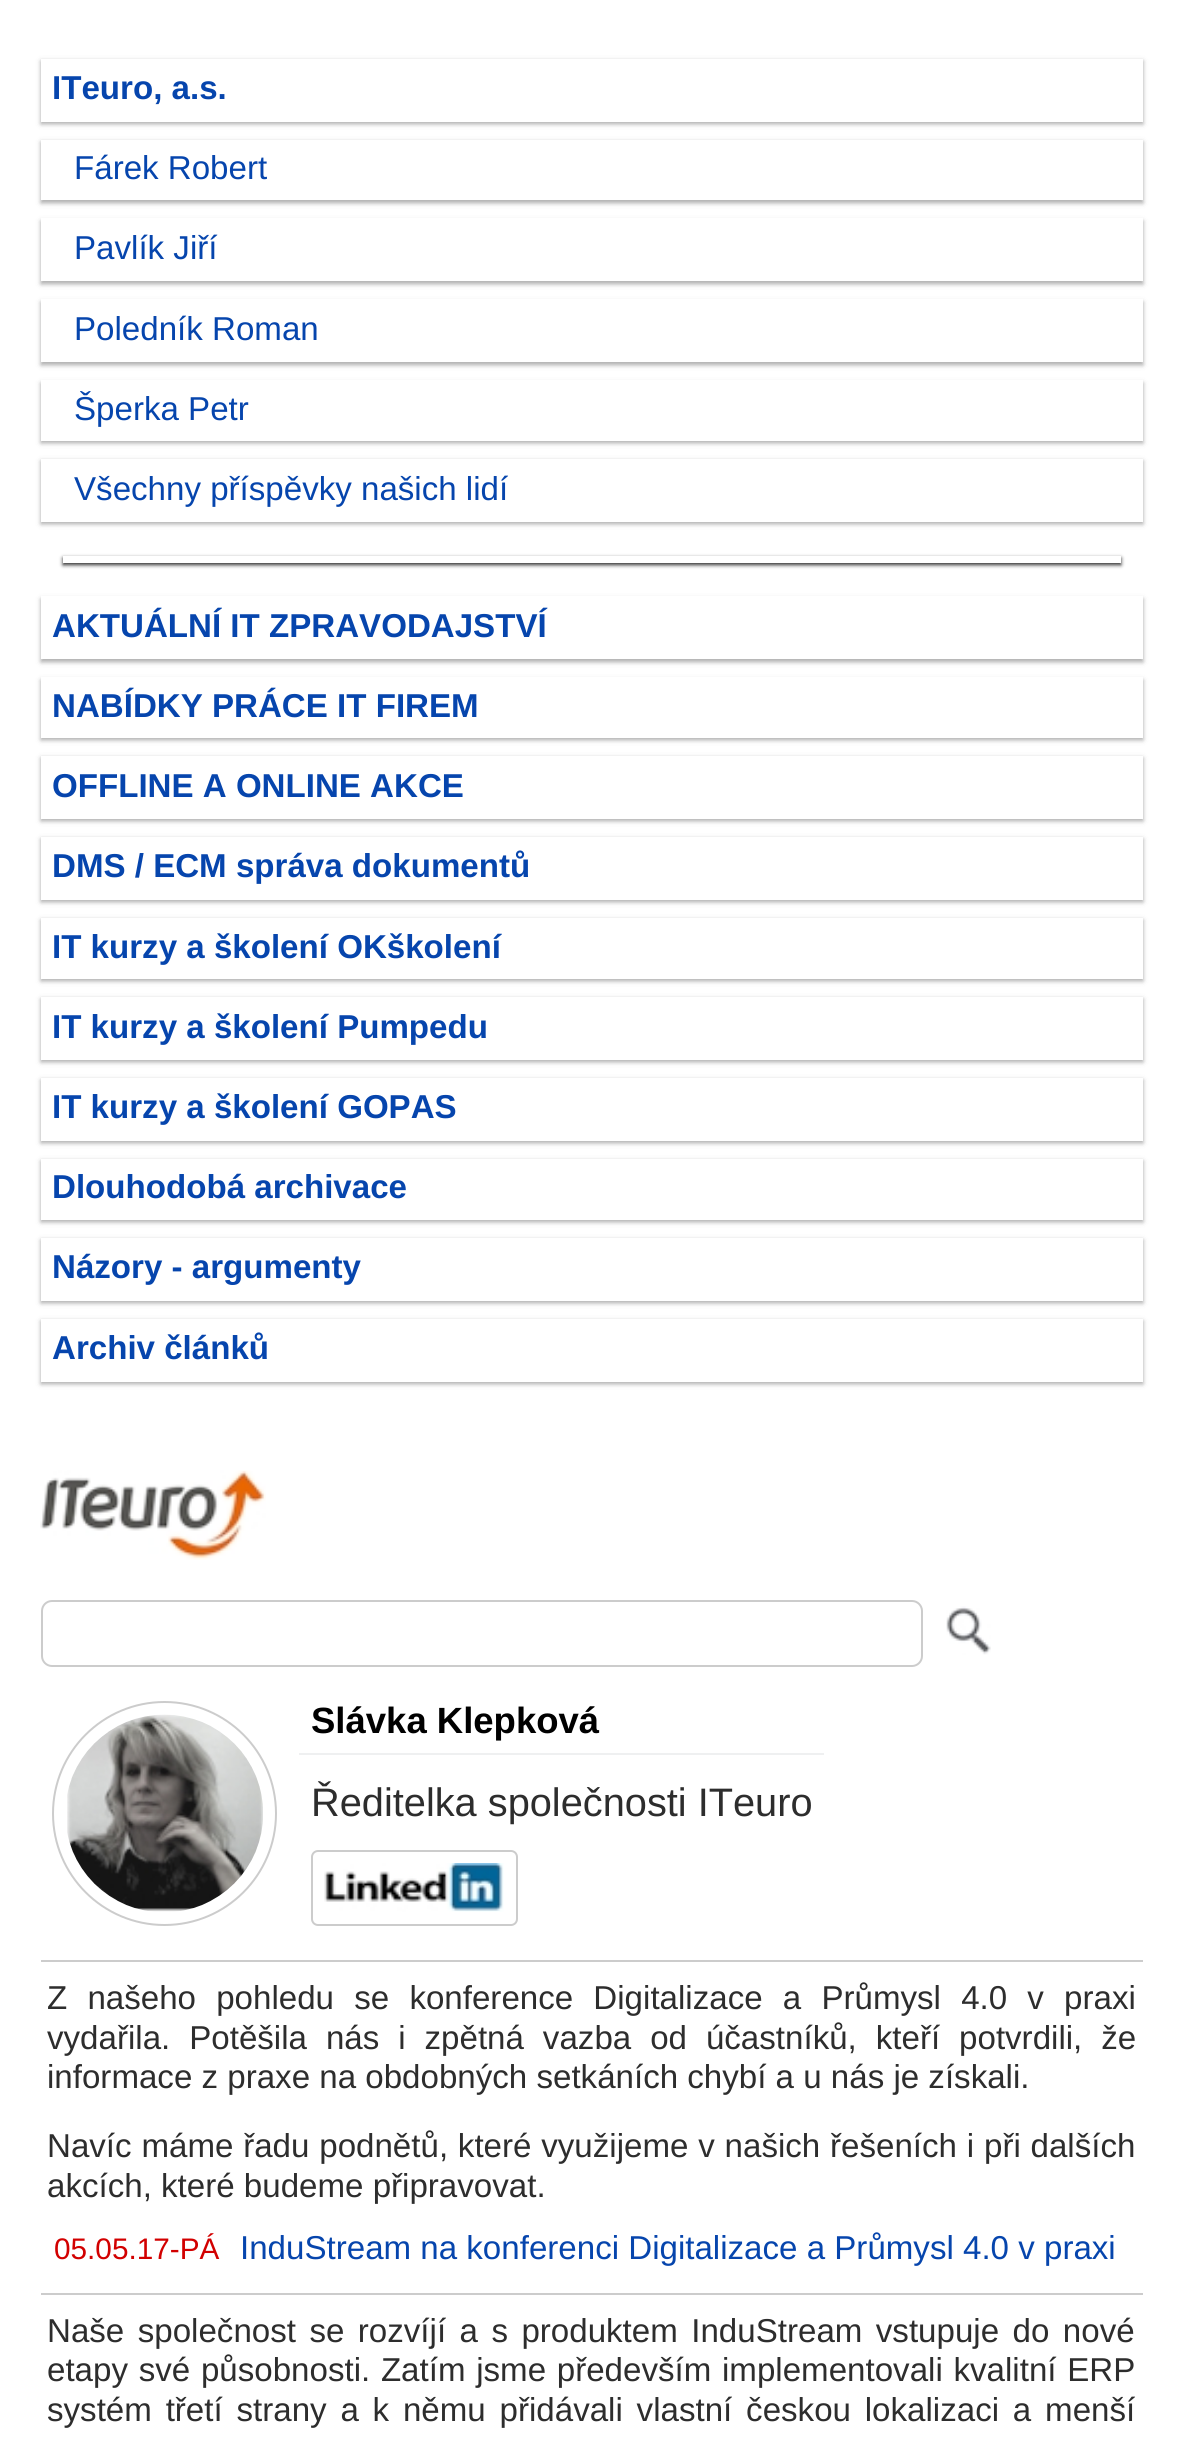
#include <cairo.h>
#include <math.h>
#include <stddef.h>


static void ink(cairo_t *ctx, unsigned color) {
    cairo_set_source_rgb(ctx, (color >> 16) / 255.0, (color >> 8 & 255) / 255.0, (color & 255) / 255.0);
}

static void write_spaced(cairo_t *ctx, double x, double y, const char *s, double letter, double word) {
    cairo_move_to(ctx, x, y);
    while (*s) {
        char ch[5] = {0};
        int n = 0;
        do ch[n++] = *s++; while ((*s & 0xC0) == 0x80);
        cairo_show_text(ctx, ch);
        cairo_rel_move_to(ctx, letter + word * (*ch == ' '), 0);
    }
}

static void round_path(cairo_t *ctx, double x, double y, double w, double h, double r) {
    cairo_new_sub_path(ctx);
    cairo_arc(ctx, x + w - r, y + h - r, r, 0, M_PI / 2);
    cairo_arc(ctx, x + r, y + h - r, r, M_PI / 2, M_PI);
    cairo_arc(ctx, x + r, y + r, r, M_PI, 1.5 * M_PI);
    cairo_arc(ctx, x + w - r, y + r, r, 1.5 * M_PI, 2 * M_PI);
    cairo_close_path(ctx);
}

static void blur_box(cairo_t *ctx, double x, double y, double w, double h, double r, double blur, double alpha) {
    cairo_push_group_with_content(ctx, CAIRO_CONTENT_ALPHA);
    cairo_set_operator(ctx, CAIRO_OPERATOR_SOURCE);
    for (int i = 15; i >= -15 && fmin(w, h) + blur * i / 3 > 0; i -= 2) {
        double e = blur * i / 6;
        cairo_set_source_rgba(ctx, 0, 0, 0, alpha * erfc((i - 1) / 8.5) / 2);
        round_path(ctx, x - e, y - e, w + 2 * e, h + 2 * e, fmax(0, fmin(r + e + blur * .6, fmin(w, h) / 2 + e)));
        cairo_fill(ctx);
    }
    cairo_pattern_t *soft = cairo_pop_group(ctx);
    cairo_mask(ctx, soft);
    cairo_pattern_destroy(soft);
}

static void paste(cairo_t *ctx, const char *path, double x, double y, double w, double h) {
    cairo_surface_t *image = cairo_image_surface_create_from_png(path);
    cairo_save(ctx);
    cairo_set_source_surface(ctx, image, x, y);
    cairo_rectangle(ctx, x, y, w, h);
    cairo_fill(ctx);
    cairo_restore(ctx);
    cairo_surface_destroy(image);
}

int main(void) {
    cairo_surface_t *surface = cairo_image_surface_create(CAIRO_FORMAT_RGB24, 1183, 2441);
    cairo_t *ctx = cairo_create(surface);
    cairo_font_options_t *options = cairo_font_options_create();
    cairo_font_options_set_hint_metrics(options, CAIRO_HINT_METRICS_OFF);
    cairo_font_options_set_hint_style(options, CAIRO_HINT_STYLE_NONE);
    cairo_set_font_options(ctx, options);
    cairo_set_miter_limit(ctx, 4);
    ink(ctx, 0xFFFFFF);
    cairo_paint(ctx);
    ink(ctx, 0x000000);
    blur_box(ctx, 41, 61, 1102, 63, 0, 2, 0.24);
    blur_box(ctx, 41, 61, 1102, 63, 0, 3.5, 0.12);
    ink(ctx, 0xFFFFFF);
    cairo_rectangle(ctx, 41, 59, 1102, 63);
    cairo_fill(ctx);
    cairo_select_font_face(ctx, "Liberation Sans", CAIRO_FONT_SLANT_NORMAL, CAIRO_FONT_WEIGHT_BOLD);
    cairo_set_font_size(ctx, 33.1);
    ink(ctx, 0x0645AD);
    cairo_move_to(ctx, 52, 99);
    cairo_show_text(ctx, "ITeuro, a.s.");
    cairo_save(ctx);
    cairo_set_fill_rule(ctx, CAIRO_FILL_RULE_EVEN_ODD);
    cairo_new_path(ctx);
    cairo_move_to(ctx, 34, 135);
    cairo_line_to(ctx, 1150, 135);
    cairo_line_to(ctx, 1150, 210);
    cairo_line_to(ctx, 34, 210);
    cairo_close_path(ctx);
    cairo_move_to(ctx, 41, 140);
    cairo_line_to(ctx, 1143, 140);
    cairo_line_to(ctx, 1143, 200);
    cairo_line_to(ctx, 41, 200);
    cairo_close_path(ctx);
    cairo_clip(ctx);
    ink(ctx, 0x000000);
    blur_box(ctx, 41, 142, 1102, 61, 0, 2, 0.24);
    cairo_restore(ctx);
    cairo_save(ctx);
    cairo_set_fill_rule(ctx, CAIRO_FILL_RULE_EVEN_ODD);
    cairo_new_path(ctx);
    cairo_move_to(ctx, 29, 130);
    cairo_line_to(ctx, 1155, 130);
    cairo_line_to(ctx, 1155, 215);
    cairo_line_to(ctx, 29, 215);
    cairo_close_path(ctx);
    cairo_move_to(ctx, 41, 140);
    cairo_line_to(ctx, 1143, 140);
    cairo_line_to(ctx, 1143, 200);
    cairo_line_to(ctx, 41, 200);
    cairo_close_path(ctx);
    cairo_clip(ctx);
    ink(ctx, 0x000000);
    blur_box(ctx, 41, 142, 1102, 61, 0, 3.5, 0.12);
    cairo_restore(ctx);
    cairo_select_font_face(ctx, "Liberation Sans", CAIRO_FONT_SLANT_NORMAL, CAIRO_FONT_WEIGHT_NORMAL);
    cairo_move_to(ctx, 74, 179);
    cairo_show_text(ctx, "Fárek Robert");
    ink(ctx, 0x000000);
    blur_box(ctx, 41, 221, 1102, 63, 0, 2, 0.24);
    blur_box(ctx, 41, 221, 1102, 63, 0, 3.5, 0.12);
    ink(ctx, 0xFFFFFF);
    cairo_rectangle(ctx, 41, 218, 1102, 63);
    cairo_fill(ctx);
    ink(ctx, 0x0645AD);
    cairo_move_to(ctx, 74, 259);
    cairo_show_text(ctx, "Pavlík Jiří");
    ink(ctx, 0x000000);
    blur_box(ctx, 41, 302, 1102, 63, 0, 2, 0.24);
    blur_box(ctx, 41, 302, 1102, 63, 0, 3.5, 0.12);
    ink(ctx, 0xFFFFFF);
    cairo_rectangle(ctx, 41, 299, 1102, 63);
    cairo_fill(ctx);
    ink(ctx, 0x0645AD);
    cairo_move_to(ctx, 74, 340);
    cairo_show_text(ctx, "Poledník Roman");
    ink(ctx, 0x000000);
    blur_box(ctx, 41, 383, 1102, 60, 0, 2, 0.24);
    blur_box(ctx, 41, 383, 1102, 60, 0, 3.5, 0.12);
    ink(ctx, 0xFFFFFF);
    cairo_rectangle(ctx, 41, 380, 1102, 61);
    cairo_fill(ctx);
    ink(ctx, 0x0645AD);
    cairo_move_to(ctx, 74, 420);
    cairo_show_text(ctx, "Šperka Petr");
    cairo_save(ctx);
    cairo_set_fill_rule(ctx, CAIRO_FILL_RULE_EVEN_ODD);
    cairo_new_path(ctx);
    cairo_move_to(ctx, 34, 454);
    cairo_line_to(ctx, 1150, 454);
    cairo_line_to(ctx, 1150, 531);
    cairo_line_to(ctx, 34, 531);
    cairo_close_path(ctx);
    cairo_move_to(ctx, 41, 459);
    cairo_line_to(ctx, 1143, 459);
    cairo_line_to(ctx, 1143, 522);
    cairo_line_to(ctx, 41, 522);
    cairo_close_path(ctx);
    cairo_clip(ctx);
    ink(ctx, 0x000000);
    blur_box(ctx, 41, 461, 1102, 63, 0, 2, 0.24);
    cairo_restore(ctx);
    cairo_save(ctx);
    cairo_set_fill_rule(ctx, CAIRO_FILL_RULE_EVEN_ODD);
    cairo_new_path(ctx);
    cairo_move_to(ctx, 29, 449);
    cairo_line_to(ctx, 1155, 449);
    cairo_line_to(ctx, 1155, 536);
    cairo_line_to(ctx, 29, 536);
    cairo_close_path(ctx);
    cairo_move_to(ctx, 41, 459);
    cairo_line_to(ctx, 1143, 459);
    cairo_line_to(ctx, 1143, 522);
    cairo_line_to(ctx, 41, 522);
    cairo_close_path(ctx);
    cairo_clip(ctx);
    ink(ctx, 0x000000);
    blur_box(ctx, 41, 461, 1102, 63, 0, 3.5, 0.12);
    cairo_restore(ctx);
    cairo_move_to(ctx, 74, 500);
    cairo_show_text(ctx, "Všechny příspěvky našich lidí");
    ink(ctx, 0x2D2D2D);
    blur_box(ctx, 63, 558, 1058, 7, 0, 2, 1);
    ink(ctx, 0xFFFFFF);
    cairo_rectangle(ctx, 63, 556, 1058, 7);
    cairo_fill(ctx);
    ink(ctx, 0x000000);
    blur_box(ctx, 41, 599, 1102, 63, 0, 2, 0.24);
    blur_box(ctx, 41, 599, 1102, 63, 0, 3.5, 0.12);
    ink(ctx, 0xFFFFFF);
    cairo_rectangle(ctx, 41, 596, 1102, 63);
    cairo_fill(ctx);
    cairo_select_font_face(ctx, "Liberation Sans", CAIRO_FONT_SLANT_NORMAL, CAIRO_FONT_WEIGHT_BOLD);
    ink(ctx, 0x0645AD);
    cairo_move_to(ctx, 52, 637);
    cairo_show_text(ctx, "AKTUÁLNÍ IT ZPRAVODAJSTVÍ");
    ink(ctx, 0x000000);
    blur_box(ctx, 41, 680, 1102, 60, 0, 2, 0.24);
    blur_box(ctx, 41, 680, 1102, 60, 0, 3.5, 0.12);
    ink(ctx, 0xFFFFFF);
    cairo_rectangle(ctx, 41, 677, 1102, 61);
    cairo_fill(ctx);
    ink(ctx, 0x0645AD);
    cairo_move_to(ctx, 52, 717);
    cairo_show_text(ctx, "NABÍDKY PRÁCE IT FIREM");
    cairo_save(ctx);
    cairo_set_fill_rule(ctx, CAIRO_FILL_RULE_EVEN_ODD);
    cairo_new_path(ctx);
    cairo_move_to(ctx, 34, 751);
    cairo_line_to(ctx, 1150, 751);
    cairo_line_to(ctx, 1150, 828);
    cairo_line_to(ctx, 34, 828);
    cairo_close_path(ctx);
    cairo_move_to(ctx, 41, 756);
    cairo_line_to(ctx, 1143, 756);
    cairo_line_to(ctx, 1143, 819);
    cairo_line_to(ctx, 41, 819);
    cairo_close_path(ctx);
    cairo_clip(ctx);
    ink(ctx, 0x000000);
    blur_box(ctx, 41, 758, 1102, 63, 0, 2, 0.24);
    cairo_restore(ctx);
    cairo_save(ctx);
    cairo_set_fill_rule(ctx, CAIRO_FILL_RULE_EVEN_ODD);
    cairo_new_path(ctx);
    cairo_move_to(ctx, 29, 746);
    cairo_line_to(ctx, 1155, 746);
    cairo_line_to(ctx, 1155, 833);
    cairo_line_to(ctx, 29, 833);
    cairo_close_path(ctx);
    cairo_move_to(ctx, 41, 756);
    cairo_line_to(ctx, 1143, 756);
    cairo_line_to(ctx, 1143, 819);
    cairo_line_to(ctx, 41, 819);
    cairo_close_path(ctx);
    cairo_clip(ctx);
    ink(ctx, 0x000000);
    blur_box(ctx, 41, 758, 1102, 63, 0, 3.5, 0.12);
    cairo_restore(ctx);
    cairo_move_to(ctx, 52, 797);
    cairo_show_text(ctx, "OFFLINE A ONLINE AKCE");
    cairo_save(ctx);
    cairo_set_fill_rule(ctx, CAIRO_FILL_RULE_EVEN_ODD);
    cairo_new_path(ctx);
    cairo_move_to(ctx, 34, 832);
    cairo_line_to(ctx, 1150, 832);
    cairo_line_to(ctx, 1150, 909);
    cairo_line_to(ctx, 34, 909);
    cairo_close_path(ctx);
    cairo_move_to(ctx, 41, 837);
    cairo_line_to(ctx, 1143, 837);
    cairo_line_to(ctx, 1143, 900);
    cairo_line_to(ctx, 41, 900);
    cairo_close_path(ctx);
    cairo_clip(ctx);
    ink(ctx, 0x000000);
    blur_box(ctx, 41, 839, 1102, 63, 0, 2, 0.24);
    cairo_restore(ctx);
    cairo_save(ctx);
    cairo_set_fill_rule(ctx, CAIRO_FILL_RULE_EVEN_ODD);
    cairo_new_path(ctx);
    cairo_move_to(ctx, 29, 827);
    cairo_line_to(ctx, 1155, 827);
    cairo_line_to(ctx, 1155, 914);
    cairo_line_to(ctx, 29, 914);
    cairo_close_path(ctx);
    cairo_move_to(ctx, 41, 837);
    cairo_line_to(ctx, 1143, 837);
    cairo_line_to(ctx, 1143, 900);
    cairo_line_to(ctx, 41, 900);
    cairo_close_path(ctx);
    cairo_clip(ctx);
    ink(ctx, 0x000000);
    blur_box(ctx, 41, 839, 1102, 63, 0, 3.5, 0.12);
    cairo_restore(ctx);
    cairo_move_to(ctx, 52, 877);
    cairo_show_text(ctx, "DMS / ECM správa dokumentů");
    ink(ctx, 0x000000);
    blur_box(ctx, 41, 920, 1102, 61, 0, 2, 0.24);
    blur_box(ctx, 41, 920, 1102, 61, 0, 3.5, 0.12);
    ink(ctx, 0xFFFFFF);
    cairo_rectangle(ctx, 41, 918, 1102, 61);
    cairo_fill(ctx);
    ink(ctx, 0x0645AD);
    cairo_move_to(ctx, 52, 958);
    cairo_show_text(ctx, "IT kurzy a školení OKškolení");
    ink(ctx, 0x000000);
    blur_box(ctx, 41, 999, 1102, 63, 0, 2, 0.24);
    blur_box(ctx, 41, 999, 1102, 63, 0, 3.5, 0.12);
    ink(ctx, 0xFFFFFF);
    cairo_rectangle(ctx, 41, 997, 1102, 63);
    cairo_fill(ctx);
    ink(ctx, 0x0645AD);
    cairo_move_to(ctx, 52, 1038);
    cairo_show_text(ctx, "IT kurzy a školení Pumpedu");
    ink(ctx, 0x000000);
    blur_box(ctx, 41, 1080, 1102, 63, 0, 2, 0.24);
    blur_box(ctx, 41, 1080, 1102, 63, 0, 3.5, 0.12);
    ink(ctx, 0xFFFFFF);
    cairo_rectangle(ctx, 41, 1078, 1102, 63);
    cairo_fill(ctx);
    ink(ctx, 0x0645AD);
    cairo_move_to(ctx, 52, 1118);
    cairo_show_text(ctx, "IT kurzy a školení GOPAS");
    ink(ctx, 0x000000);
    blur_box(ctx, 41, 1161, 1102, 61, 0, 2, 0.24);
    blur_box(ctx, 41, 1161, 1102, 61, 0, 3.5, 0.12);
    ink(ctx, 0xFFFFFF);
    cairo_rectangle(ctx, 41, 1159, 1102, 61);
    cairo_fill(ctx);
    ink(ctx, 0x0645AD);
    cairo_move_to(ctx, 52, 1198);
    cairo_show_text(ctx, "Dlouhodobá archivace");
    ink(ctx, 0x000000);
    blur_box(ctx, 41, 1240, 1102, 63, 0, 2, 0.24);
    blur_box(ctx, 41, 1240, 1102, 63, 0, 3.5, 0.12);
    ink(ctx, 0xFFFFFF);
    cairo_rectangle(ctx, 41, 1238, 1102, 63);
    cairo_fill(ctx);
    ink(ctx, 0x0645AD);
    cairo_move_to(ctx, 52, 1278);
    cairo_show_text(ctx, "Názory - argumenty");
    ink(ctx, 0x000000);
    blur_box(ctx, 41, 1321, 1102, 63, 0, 2, 0.24);
    blur_box(ctx, 41, 1321, 1102, 63, 0, 3.5, 0.12);
    ink(ctx, 0xFFFFFF);
    cairo_rectangle(ctx, 41, 1319, 1102, 63);
    cairo_fill(ctx);
    ink(ctx, 0x0645AD);
    cairo_move_to(ctx, 52, 1359);
    cairo_show_text(ctx, "Archiv článků");
    paste(ctx, "media/1.png", 40, 1470, 226, 90);
    round_path(ctx, 42, 1601, 880, 65, 10);
    ink(ctx, 0xCCCCCC);
    cairo_stroke(ctx);
    paste(ctx, "media/2.png", 946, 1606, 45, 49);
    cairo_arc(ctx, 164.5, 1813.5, 111.5, 0, 2 * M_PI);
    cairo_stroke(ctx);
    paste(ctx, "media/3.png", 67, 1714, 196, 198);
    ink(ctx, 0xEFF0F1);
    cairo_rectangle(ctx, 299, 1753, 525, 2);
    cairo_fill(ctx);
    cairo_set_font_size(ctx, 36.5);
    ink(ctx, 0x000000);
    cairo_move_to(ctx, 311, 1733);
    cairo_show_text(ctx, "Slávka Klepková");
    cairo_select_font_face(ctx, "Liberation Sans", CAIRO_FONT_SLANT_NORMAL, CAIRO_FONT_WEIGHT_NORMAL);
    cairo_set_font_size(ctx, 39.75);
    ink(ctx, 0x2D2D2D);
    cairo_move_to(ctx, 311, 1816);
    cairo_show_text(ctx, "Ředitelka společnosti ITeuro");
    round_path(ctx, 312, 1851, 205, 74, 6);
    ink(ctx, 0xCCCCCC);
    cairo_stroke(ctx);
    paste(ctx, "media/4.png", 324, 1863, 180, 49);
    cairo_rectangle(ctx, 41, 1960, 1102, 2);
    cairo_fill(ctx);
    cairo_set_font_size(ctx, 33.1);
    ink(ctx, 0x2D2D2D);
    write_spaced(ctx, 47, 2009, "Z našeho pohledu se konference Digitalizace a Průmysl 4.0 v praxi", 0, 11);
    write_spaced(ctx, 47, 2049, "vydařila. Potěšila nás i zpětná vazba od účastníků, kteří potvrdili, že", 0, 9.75);
    cairo_move_to(ctx, 47, 2088);
    cairo_show_text(ctx, "informace z praxe na obdobných setkáních chybí a u nás je získali.");
    write_spaced(ctx, 47, 2157, "Navíc máme řadu podnětů, které využijeme v našich řešeních i při dalších", 0, 0.6);
    cairo_move_to(ctx, 47, 2197);
    cairo_show_text(ctx, "akcích, které budeme připravovat.");
    cairo_set_font_size(ctx, 29.75);
    ink(ctx, 0xD20000);
    cairo_move_to(ctx, 54, 2259);
    cairo_show_text(ctx, "05.05.17-PÁ");
    cairo_set_font_size(ctx, 33.1);
    ink(ctx, 0x0645AD);
    cairo_move_to(ctx, 240, 2259);
    cairo_show_text(ctx, "InduStream na konferenci Digitalizace a Průmysl 4.0 v praxi");
    ink(ctx, 0xCCCCCC);
    cairo_rectangle(ctx, 41, 2293, 1102, 2);
    cairo_fill(ctx);
    ink(ctx, 0x2D2D2D);
    write_spaced(ctx, 47, 2342, "Naše společnost se rozvíjí a s produktem InduStream vstupuje do nové", 0, 4.25);
    write_spaced(ctx, 47, 2381, "etapy své působnosti. Zatím jsme především implementovali kvalitní ERP", 0, 1.5);
    write_spaced(ctx, 47, 2421, "systém třetí strany a k němu přidávali vlastní českou lokalizaci a menší", 0, 4.6);
    cairo_surface_write_to_png(surface, "image.png");
    cairo_font_options_destroy(options);
    cairo_destroy(ctx);
    cairo_surface_destroy(surface);
    return 0;
}
